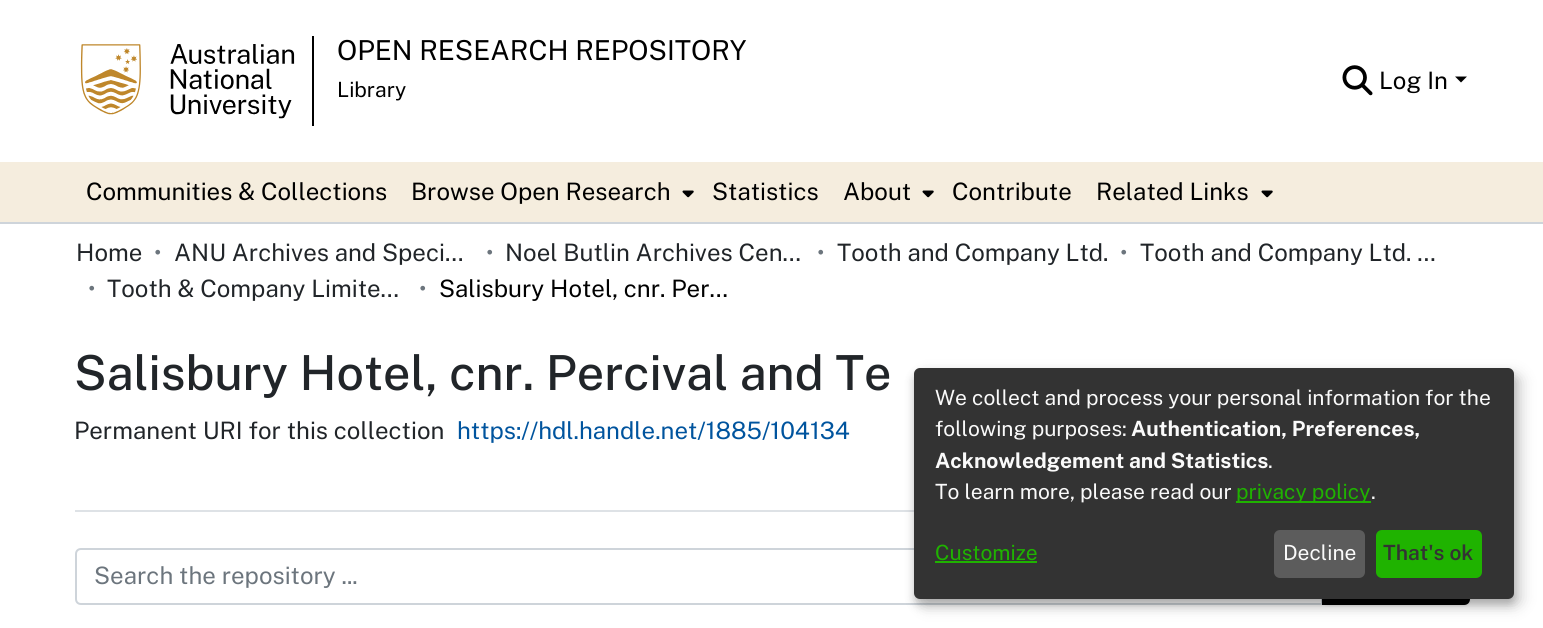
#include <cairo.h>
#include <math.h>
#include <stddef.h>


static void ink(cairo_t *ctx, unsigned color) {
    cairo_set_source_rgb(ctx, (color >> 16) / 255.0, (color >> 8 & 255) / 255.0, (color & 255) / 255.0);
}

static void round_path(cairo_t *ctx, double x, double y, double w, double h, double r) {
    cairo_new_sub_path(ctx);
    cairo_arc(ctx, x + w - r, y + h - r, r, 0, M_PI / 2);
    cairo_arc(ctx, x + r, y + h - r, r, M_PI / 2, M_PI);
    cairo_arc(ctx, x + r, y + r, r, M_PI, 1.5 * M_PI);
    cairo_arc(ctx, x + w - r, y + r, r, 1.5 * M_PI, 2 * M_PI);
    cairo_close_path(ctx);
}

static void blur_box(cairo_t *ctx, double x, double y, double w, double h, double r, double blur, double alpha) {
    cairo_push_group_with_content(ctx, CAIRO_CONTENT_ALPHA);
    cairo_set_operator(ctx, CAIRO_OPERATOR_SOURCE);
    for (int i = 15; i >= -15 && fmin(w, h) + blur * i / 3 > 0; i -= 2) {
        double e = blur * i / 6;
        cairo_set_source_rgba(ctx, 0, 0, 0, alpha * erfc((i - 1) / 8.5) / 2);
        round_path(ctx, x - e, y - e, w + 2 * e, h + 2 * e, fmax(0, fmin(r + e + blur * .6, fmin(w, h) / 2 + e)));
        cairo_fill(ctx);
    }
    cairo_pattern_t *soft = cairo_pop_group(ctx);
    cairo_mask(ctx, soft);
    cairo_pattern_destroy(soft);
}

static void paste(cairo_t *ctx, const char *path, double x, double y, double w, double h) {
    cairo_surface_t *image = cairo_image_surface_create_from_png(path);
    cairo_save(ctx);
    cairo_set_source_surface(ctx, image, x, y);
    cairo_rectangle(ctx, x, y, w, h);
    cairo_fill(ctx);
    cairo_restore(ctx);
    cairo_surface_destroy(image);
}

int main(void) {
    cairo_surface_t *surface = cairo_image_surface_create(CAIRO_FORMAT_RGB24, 1543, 628);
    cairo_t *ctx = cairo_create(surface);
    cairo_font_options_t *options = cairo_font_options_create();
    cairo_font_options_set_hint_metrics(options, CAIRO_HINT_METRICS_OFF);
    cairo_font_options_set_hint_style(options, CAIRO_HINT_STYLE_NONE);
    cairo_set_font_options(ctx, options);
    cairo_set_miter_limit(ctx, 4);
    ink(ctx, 0xFFFFFF);
    cairo_paint(ctx);
    ink(ctx, 0xCED4DA);
    cairo_rectangle(ctx, 0, 222, 1543, 2);
    cairo_fill(ctx);
    ink(ctx, 0x000000);
    cairo_rectangle(ctx, 312, 36, 2, 90);
    cairo_fill(ctx);
    paste(ctx, "media/1.png", 80, 44, 215, 75);
    cairo_select_font_face(ctx, "Public Sans", CAIRO_FONT_SLANT_NORMAL, CAIRO_FONT_WEIGHT_NORMAL);
    cairo_set_font_size(ctx, 27.5);
    cairo_move_to(ctx, 337, 60);
    cairo_show_text(ctx, "OPEN RESEARCH REPOSITORY");
    cairo_set_font_size(ctx, 21);
    cairo_move_to(ctx, 337, 97);
    cairo_show_text(ctx, "Library");
    paste(ctx, "media/2.png", 1342, 65, 31, 31);
    cairo_set_font_size(ctx, 24);
    cairo_move_to(ctx, 1379, 89);
    cairo_show_text(ctx, "Log In");
    cairo_new_path(ctx);
    cairo_move_to(ctx, 1455, 76.5);
    cairo_line_to(ctx, 1467, 76.5);
    cairo_line_to(ctx, 1461, 82.5);
    cairo_close_path(ctx);
    cairo_fill(ctx);
    ink(ctx, 0xF5EDDE);
    cairo_rectangle(ctx, 0, 162, 1543, 60);
    cairo_fill(ctx);
    ink(ctx, 0x000000);
    cairo_move_to(ctx, 86, 200);
    cairo_show_text(ctx, "Communities & Collections");
    cairo_move_to(ctx, 411, 200);
    cairo_show_text(ctx, "Browse Open Research");
    paste(ctx, "media/3.png", 682, 190, 12, 8);
    cairo_move_to(ctx, 712, 200);
    cairo_show_text(ctx, "Statistics");
    cairo_move_to(ctx, 843, 200);
    cairo_show_text(ctx, "About");
    paste(ctx, "media/3.png", 922, 190, 12, 8);
    cairo_move_to(ctx, 952, 200);
    cairo_show_text(ctx, "Contribute");
    cairo_move_to(ctx, 1096, 200);
    cairo_show_text(ctx, "Related Links");
    paste(ctx, "media/3.png", 1261, 190, 12, 8);
    ink(ctx, 0x212529);
    cairo_move_to(ctx, 76, 261);
    cairo_show_text(ctx, "Home");
    ink(ctx, 0x6C757D);
    cairo_move_to(ctx, 154, 261);
    cairo_show_text(ctx, "•");
    ink(ctx, 0x212529);
    cairo_move_to(ctx, 174, 261);
    cairo_show_text(ctx, "ANU Archives and Speci…");
    ink(ctx, 0x6C757D);
    cairo_move_to(ctx, 486, 261);
    cairo_show_text(ctx, "•");
    ink(ctx, 0x212529);
    cairo_move_to(ctx, 505, 261);
    cairo_show_text(ctx, "Noel Butlin Archives Cen…");
    ink(ctx, 0x6C757D);
    cairo_move_to(ctx, 817, 261);
    cairo_show_text(ctx, "•");
    ink(ctx, 0x212529);
    cairo_move_to(ctx, 837, 261);
    cairo_show_text(ctx, "Tooth and Company Ltd.");
    ink(ctx, 0x6C757D);
    cairo_move_to(ctx, 1120, 261);
    cairo_show_text(ctx, "•");
    ink(ctx, 0x212529);
    cairo_move_to(ctx, 1140, 261);
    cairo_show_text(ctx, "Tooth and Company Ltd. …");
    ink(ctx, 0x6C757D);
    cairo_move_to(ctx, 88, 297);
    cairo_show_text(ctx, "•");
    ink(ctx, 0x212529);
    cairo_move_to(ctx, 107, 297);
    cairo_show_text(ctx, "Tooth & Company Limite…");
    ink(ctx, 0x6C757D);
    cairo_move_to(ctx, 419, 297);
    cairo_show_text(ctx, "•");
    ink(ctx, 0x000000);
    cairo_move_to(ctx, 439, 297);
    cairo_show_text(ctx, "Salisbury Hotel, cnr. Per…");
    ink(ctx, 0xDEE2E6);
    cairo_rectangle(ctx, 75, 510, 839, 2);
    cairo_fill(ctx);
    cairo_select_font_face(ctx, "Public Sans Medium", CAIRO_FONT_SLANT_NORMAL, CAIRO_FONT_WEIGHT_NORMAL);
    cairo_set_font_size(ctx, 48.3);
    ink(ctx, 0x212529);
    cairo_move_to(ctx, 74, 390);
    cairo_show_text(ctx, "Salisbury Hotel, cnr. Percival and Te");
    cairo_select_font_face(ctx, "Public Sans", CAIRO_FONT_SLANT_NORMAL, CAIRO_FONT_WEIGHT_NORMAL);
    cairo_set_font_size(ctx, 24);
    cairo_move_to(ctx, 74, 439);
    cairo_show_text(ctx, "Permanent URI for this collection");
    ink(ctx, 0x00549E);
    cairo_move_to(ctx, 457, 439);
    cairo_show_text(ctx, "https://hdl.handle.net/1885/104134");
    cairo_new_path(ctx);
    cairo_move_to(ctx, 81, 549);
    cairo_line_to(ctx, 1322, 549);
    cairo_line_to(ctx, 1322, 604);
    cairo_line_to(ctx, 81, 604);
    cairo_curve_to(ctx, 78, 604, 76, 602, 76, 599);
    cairo_line_to(ctx, 76, 554);
    cairo_curve_to(ctx, 76, 551, 78, 549, 81, 549);
    cairo_close_path(ctx);
    ink(ctx, 0xCED4DA);
    cairo_stroke(ctx);
    ink(ctx, 0x6C757D);
    cairo_move_to(ctx, 94, 584);
    cairo_show_text(ctx, "Search the repository ...");
    ink(ctx, 0x000000);
    blur_box(ctx, 1322, 549, 148, 57, 6, 1, 0.07);
    ink(ctx, 0x000000);
    cairo_new_path(ctx);
    cairo_move_to(ctx, 1323, 549);
    cairo_line_to(ctx, 1464, 549);
    cairo_curve_to(ctx, 1467, 549, 1469, 551, 1469, 554);
    cairo_line_to(ctx, 1469, 599);
    cairo_curve_to(ctx, 1469, 602, 1467, 604, 1464, 604);
    cairo_line_to(ctx, 1323, 604);
    cairo_close_path(ctx);
    cairo_fill_preserve(ctx);
    cairo_stroke(ctx);
    ink(ctx, 0x000000);
    blur_box(ctx, 921, 375, 600, 231, 6, 7.5, 0.19);
    blur_box(ctx, 914, 374, 600, 231, 6, 4.5, 0.2);
    ink(ctx, 0x333333);
    round_path(ctx, 914, 368, 600, 231, 6);
    cairo_fill(ctx);
    cairo_set_font_size(ctx, 21);
    ink(ctx, 0xFAFAFA);
    cairo_move_to(ctx, 935, 405);
    cairo_show_text(ctx, "We collect and process your personal information for the");
    cairo_move_to(ctx, 935, 436);
    cairo_show_text(ctx, "following purposes:");
    cairo_select_font_face(ctx, "Public Sans", CAIRO_FONT_SLANT_NORMAL, CAIRO_FONT_WEIGHT_BOLD);
    cairo_move_to(ctx, 1131, 436);
    cairo_show_text(ctx, "Authentication, Preferences,");
    cairo_move_to(ctx, 935, 468);
    cairo_show_text(ctx, "Acknowledgement and Statistics");
    cairo_select_font_face(ctx, "Public Sans", CAIRO_FONT_SLANT_NORMAL, CAIRO_FONT_WEIGHT_NORMAL);
    cairo_move_to(ctx, 1268, 468);
    cairo_show_text(ctx, ".");
    cairo_move_to(ctx, 935, 499);
    cairo_show_text(ctx, "To learn more, please read our");
    ink(ctx, 0x1FB300);
    cairo_rectangle(ctx, 1236, 501, 135, 2);
    cairo_fill(ctx);
    cairo_move_to(ctx, 1236, 499);
    cairo_show_text(ctx, "privacy policy");
    ink(ctx, 0xFAFAFA);
    cairo_move_to(ctx, 1371, 499);
    cairo_show_text(ctx, ".");
    ink(ctx, 0x1FB300);
    cairo_move_to(ctx, 935, 560);
    cairo_show_text(ctx, "Customize");
    cairo_rectangle(ctx, 935, 561, 102, 2);
    cairo_fill(ctx);
    ink(ctx, 0x5C5C5C);
    round_path(ctx, 1274, 530, 91, 48, 6);
    cairo_fill(ctx);
    ink(ctx, 0xFAFAFA);
    cairo_move_to(ctx, 1283, 560);
    cairo_show_text(ctx, "Decline");
    ink(ctx, 0x1FB300);
    round_path(ctx, 1376, 530, 106, 48, 6);
    cairo_fill(ctx);
    cairo_select_font_face(ctx, "Public Sans SemiBold", CAIRO_FONT_SLANT_NORMAL, CAIRO_FONT_WEIGHT_NORMAL);
    ink(ctx, 0x333333);
    cairo_move_to(ctx, 1383, 560);
    cairo_show_text(ctx, "That's ok");
    cairo_surface_write_to_png(surface, "image.png");
    cairo_font_options_destroy(options);
    cairo_destroy(ctx);
    cairo_surface_destroy(surface);
    return 0;
}
